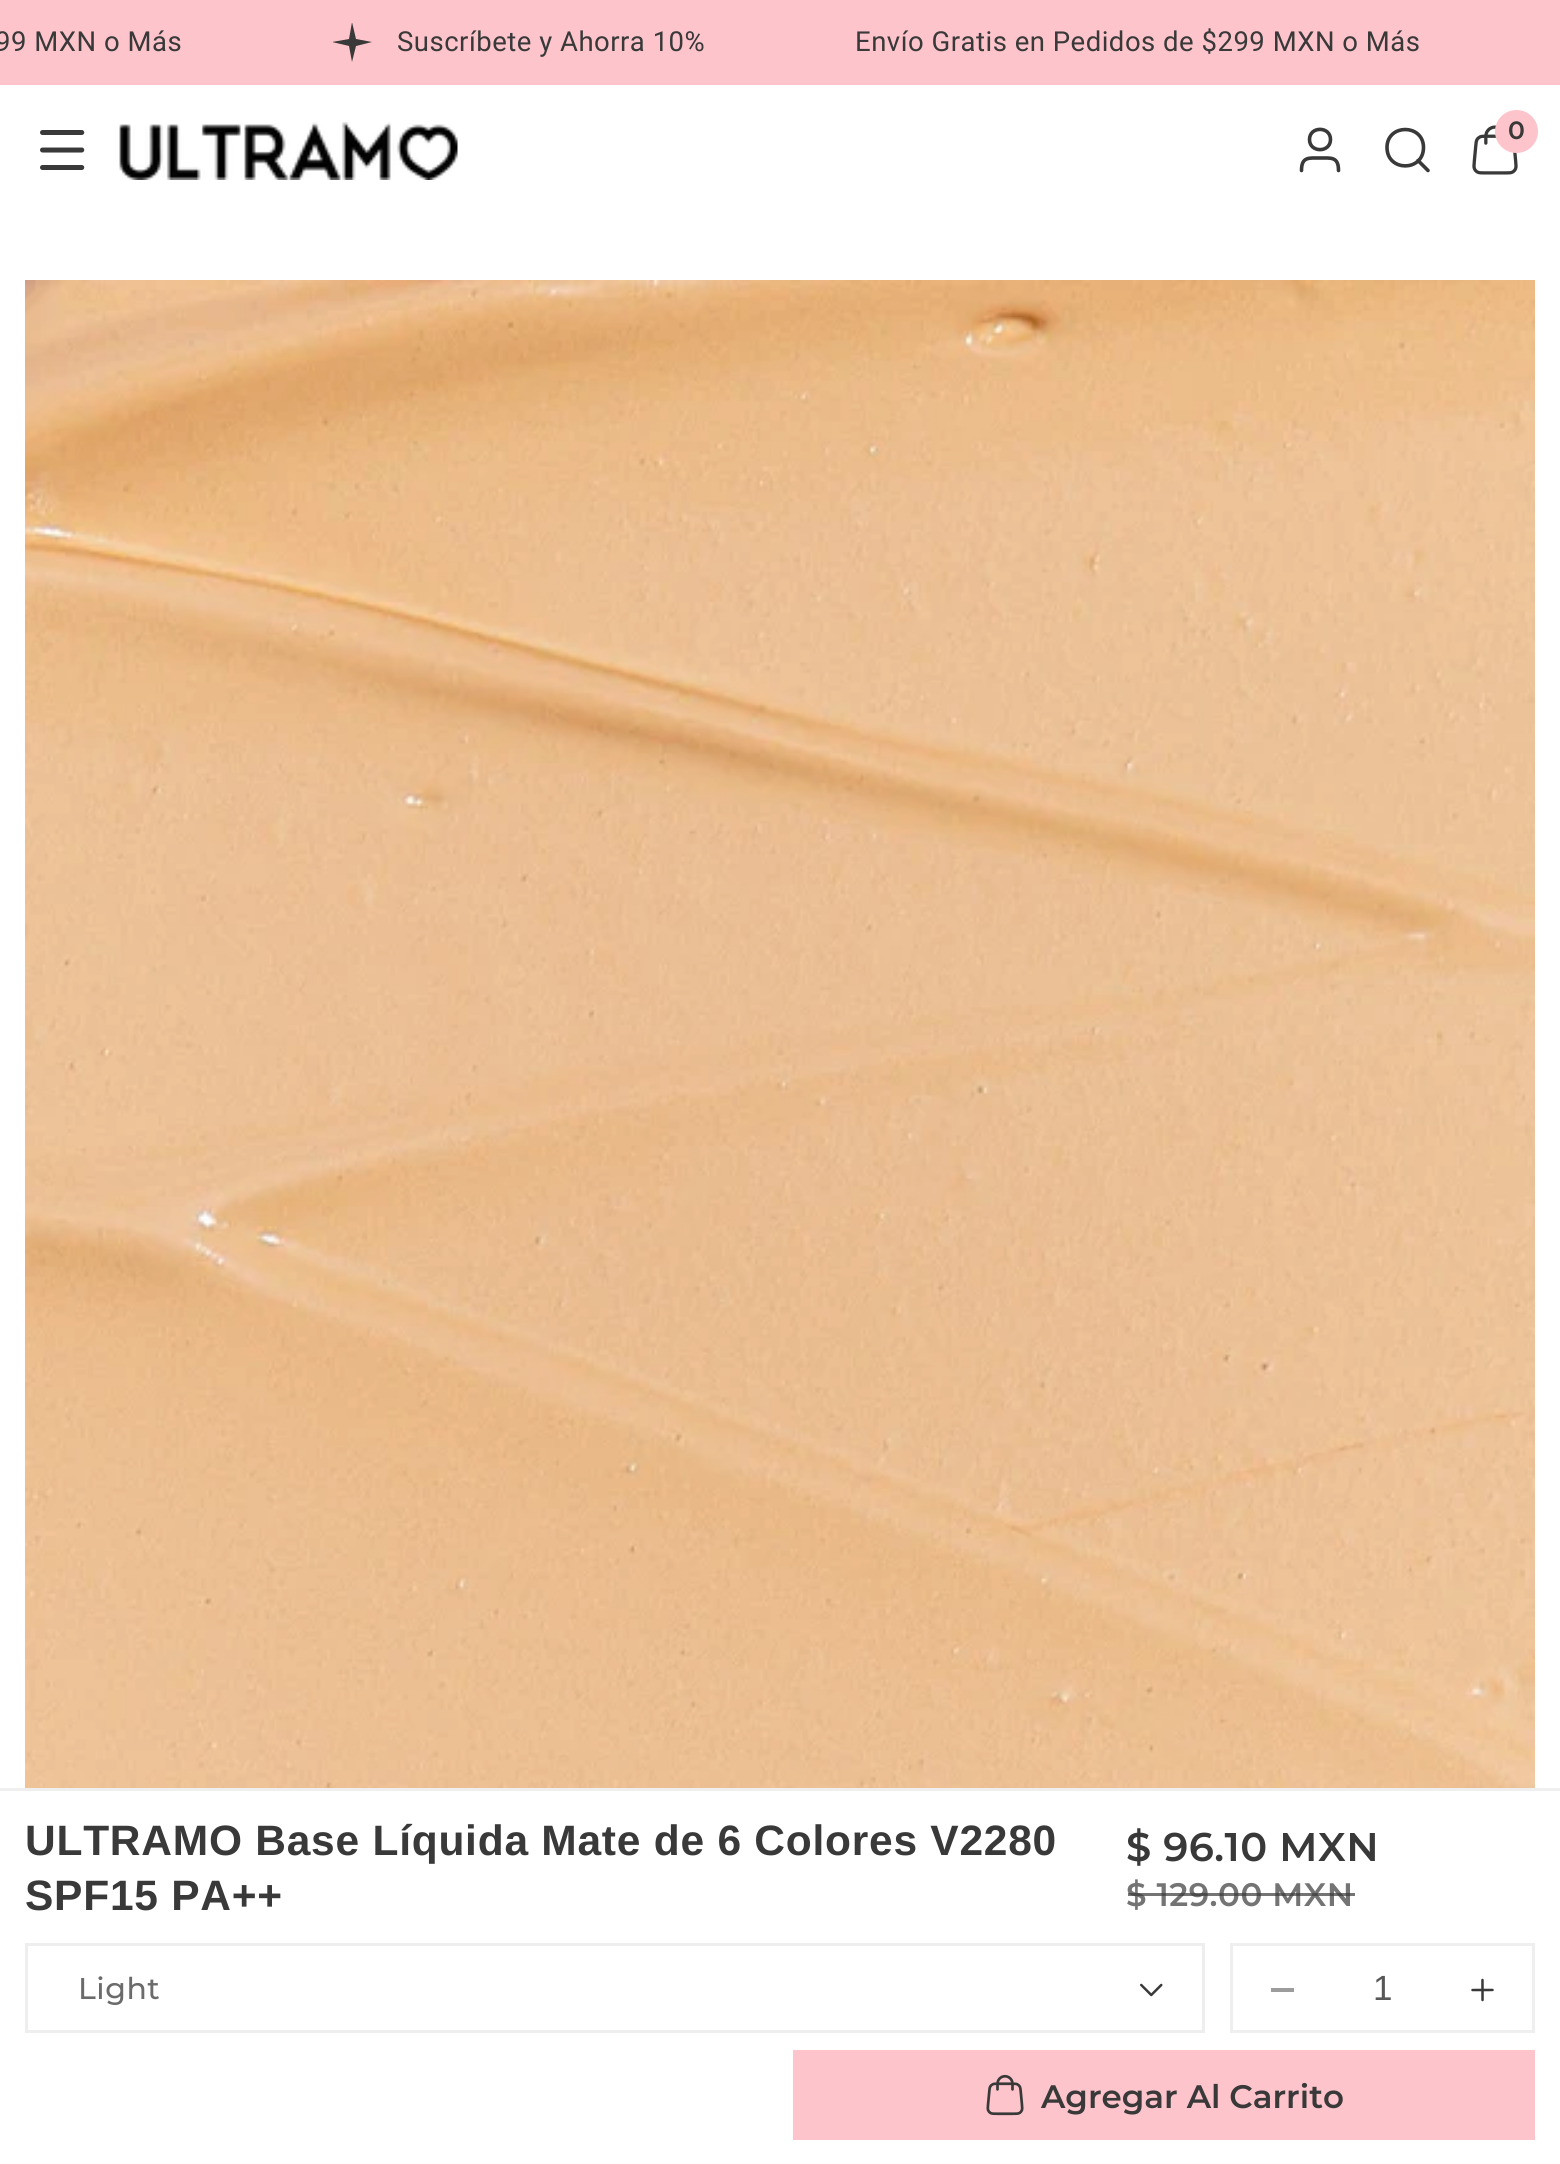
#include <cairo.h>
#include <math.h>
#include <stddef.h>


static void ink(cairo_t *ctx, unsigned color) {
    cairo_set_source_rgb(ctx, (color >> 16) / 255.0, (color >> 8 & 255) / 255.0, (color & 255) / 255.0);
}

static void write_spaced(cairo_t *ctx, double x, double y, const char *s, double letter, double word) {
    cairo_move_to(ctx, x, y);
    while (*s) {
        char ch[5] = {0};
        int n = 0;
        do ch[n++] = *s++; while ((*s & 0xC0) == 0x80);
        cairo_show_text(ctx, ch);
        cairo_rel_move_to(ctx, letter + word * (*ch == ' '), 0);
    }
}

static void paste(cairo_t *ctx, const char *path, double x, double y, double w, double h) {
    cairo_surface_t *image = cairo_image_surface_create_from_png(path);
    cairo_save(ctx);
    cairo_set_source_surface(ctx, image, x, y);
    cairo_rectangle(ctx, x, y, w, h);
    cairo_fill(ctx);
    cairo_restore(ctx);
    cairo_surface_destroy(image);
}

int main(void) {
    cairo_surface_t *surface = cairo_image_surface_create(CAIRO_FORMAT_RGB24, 1560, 2164);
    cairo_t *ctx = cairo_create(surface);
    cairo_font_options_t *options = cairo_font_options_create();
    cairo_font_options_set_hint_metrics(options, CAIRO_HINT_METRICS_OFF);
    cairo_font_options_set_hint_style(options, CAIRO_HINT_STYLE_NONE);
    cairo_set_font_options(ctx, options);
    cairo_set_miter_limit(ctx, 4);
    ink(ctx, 0xFFFFFF);
    cairo_paint(ctx);
    ink(ctx, 0xFDC4CB);
    cairo_rectangle(ctx, 0, 0, 1560, 85);
    cairo_fill(ctx);
    cairo_select_font_face(ctx, "Roboto", CAIRO_FONT_SLANT_NORMAL, CAIRO_FONT_WEIGHT_NORMAL);
    cairo_set_font_size(ctx, 27.5);
    ink(ctx, 0x393939);
    write_spaced(ctx, -5, 51, "99 MXN o Más", 0.5, 0);
    cairo_save(ctx);
    cairo_rectangle(ctx, 333, 23, 40, 40);
    cairo_clip(ctx);
    cairo_new_path(ctx);
    cairo_move_to(ctx, 352, 22);
    cairo_line_to(ctx, 356, 39);
    cairo_line_to(ctx, 372, 42);
    cairo_line_to(ctx, 356, 46);
    cairo_line_to(ctx, 352, 62);
    cairo_line_to(ctx, 349, 46);
    cairo_line_to(ctx, 332, 42);
    cairo_line_to(ctx, 349, 39);
    cairo_close_path(ctx);
    cairo_fill(ctx);
    cairo_restore(ctx);
    write_spaced(ctx, 397, 51, "Suscríbete y Ahorra 10%", 0.5, 0);
    write_spaced(ctx, 855, 51, "Envío Gratis en Pedidos de $299 MXN o Más", 0.5, 0);
    paste(ctx, "media/1.png", 40, 130, 45, 40);
    paste(ctx, "media/2.png", 119, 122, 339, 58);
    cairo_new_path(ctx);
    cairo_move_to(ctx, 1338.5, 170.5);
    cairo_curve_to(ctx, 1338.5, 156.5, 1331, 158, 1320, 158);
    cairo_curve_to(ctx, 1309, 158, 1301.5, 156.5, 1301.5, 170.5);
    cairo_move_to(ctx, 1330.5, 139.5);
    cairo_curve_to(ctx, 1330.5, 153, 1309.5, 153, 1309.5, 139.5);
    cairo_curve_to(ctx, 1309.5, 126, 1330.5, 126, 1330.5, 139.5);
    cairo_close_path(ctx);
    cairo_set_line_width(ctx, 3.6);
    cairo_set_line_cap(ctx, CAIRO_LINE_CAP_ROUND);
    cairo_set_line_join(ctx, CAIRO_LINE_JOIN_ROUND);
    cairo_stroke(ctx);
    cairo_new_path(ctx);
    cairo_move_to(ctx, 1428, 170.5);
    cairo_line_to(ctx, 1418, 160.5);
    cairo_move_to(ctx, 1423.5, 147.5);
    cairo_curve_to(ctx, 1423.5, 172, 1387, 172, 1387, 147.5);
    cairo_curve_to(ctx, 1387, 123.5, 1423.5, 123.5, 1423.5, 147.5);
    cairo_close_path(ctx);
    cairo_stroke(ctx);
    paste(ctx, "media/3.png", 1472, 125, 46, 50);
    ink(ctx, 0xFDC4CB);
    cairo_arc(ctx, 1516.5, 131.5, 21.5, 0, 2 * M_PI);
    cairo_fill(ctx);
    cairo_select_font_face(ctx, "Montserrat SemiBold", CAIRO_FONT_SLANT_NORMAL, CAIRO_FONT_WEIGHT_NORMAL);
    cairo_set_font_size(ctx, 25);
    ink(ctx, 0x393939);
    write_spaced(ctx, 1508, 139, "0", 0.5, 0);
    paste(ctx, "media/4.png", 25, 280, 1510, 1508);
    ink(ctx, 0xEFEFEF);
    cairo_rectangle(ctx, 0, 1788, 1560, 3);
    cairo_fill(ctx);
    cairo_select_font_face(ctx, "Liberation Sans", CAIRO_FONT_SLANT_NORMAL, CAIRO_FONT_WEIGHT_BOLD);
    cairo_set_font_size(ctx, 42.5);
    ink(ctx, 0x393939);
    write_spaced(ctx, 25, 1855, "ULTRAMO Base Líquida Mate de 6 Colores V2280", 0.75, 0);
    write_spaced(ctx, 25, 1910, "SPF15 PA++", 0.75, 0);
    cairo_select_font_face(ctx, "Montserrat SemiBold", CAIRO_FONT_SLANT_NORMAL, CAIRO_FONT_WEIGHT_NORMAL);
    cairo_set_font_size(ctx, 40);
    write_spaced(ctx, 1126, 1861, "$ 96.10 MXN", 0.5, 0);
    cairo_set_font_size(ctx, 32.5);
    ink(ctx, 0x747474);
    write_spaced(ctx, 1126, 1906, "$ 129.00 MXN", 0.5, 0);
    cairo_set_source_rgba(ctx, 0.224, 0.224, 0.224, 0.7);
    cairo_rectangle(ctx, 1128, 1893, 227, 3);
    cairo_fill(ctx);
    cairo_rectangle(ctx, 26.5, 1944.5, 1177, 87);
    ink(ctx, 0xEEEEEE);
    cairo_set_line_width(ctx, 3);
    cairo_set_line_cap(ctx, CAIRO_LINE_CAP_BUTT);
    cairo_set_line_join(ctx, CAIRO_LINE_JOIN_MITER);
    cairo_stroke(ctx);
    cairo_select_font_face(ctx, "Montserrat Medium", CAIRO_FONT_SLANT_NORMAL, CAIRO_FONT_WEIGHT_NORMAL);
    cairo_set_font_size(ctx, 30);
    ink(ctx, 0x6B6B6B);
    write_spaced(ctx, 78, 1999, "Light", 0.5, 0);
    paste(ctx, "media/5.png", 1140, 1983, 23, 14);
    cairo_rectangle(ctx, 1231.5, 1944.5, 302, 87);
    ink(ctx, 0xEFEFEF);
    cairo_stroke(ctx);
    ink(ctx, 0x9C9C9C);
    cairo_rectangle(ctx, 1271, 1988, 23, 4);
    cairo_fill(ctx);
    cairo_select_font_face(ctx, "Liberation Sans", CAIRO_FONT_SLANT_NORMAL, CAIRO_FONT_WEIGHT_NORMAL);
    cairo_set_font_size(ctx, 35);
    ink(ctx, 0x575757);
    cairo_move_to(ctx, 1373, 2000);
    cairo_show_text(ctx, "1");
    paste(ctx, "media/6.png", 1471, 1978, 23, 24);
    ink(ctx, 0xFDC4CB);
    cairo_rectangle(ctx, 793, 2050, 742, 90);
    cairo_fill(ctx);
    paste(ctx, "media/7.png", 986, 2074, 38, 42);
    cairo_select_font_face(ctx, "Montserrat SemiBold", CAIRO_FONT_SLANT_NORMAL, CAIRO_FONT_WEIGHT_NORMAL);
    cairo_set_font_size(ctx, 32.5);
    ink(ctx, 0x393939);
    cairo_move_to(ctx, 1041, 2108);
    cairo_show_text(ctx, "Agregar Al Carrito");
    cairo_surface_write_to_png(surface, "image.png");
    cairo_font_options_destroy(options);
    cairo_destroy(ctx);
    cairo_surface_destroy(surface);
    return 0;
}
